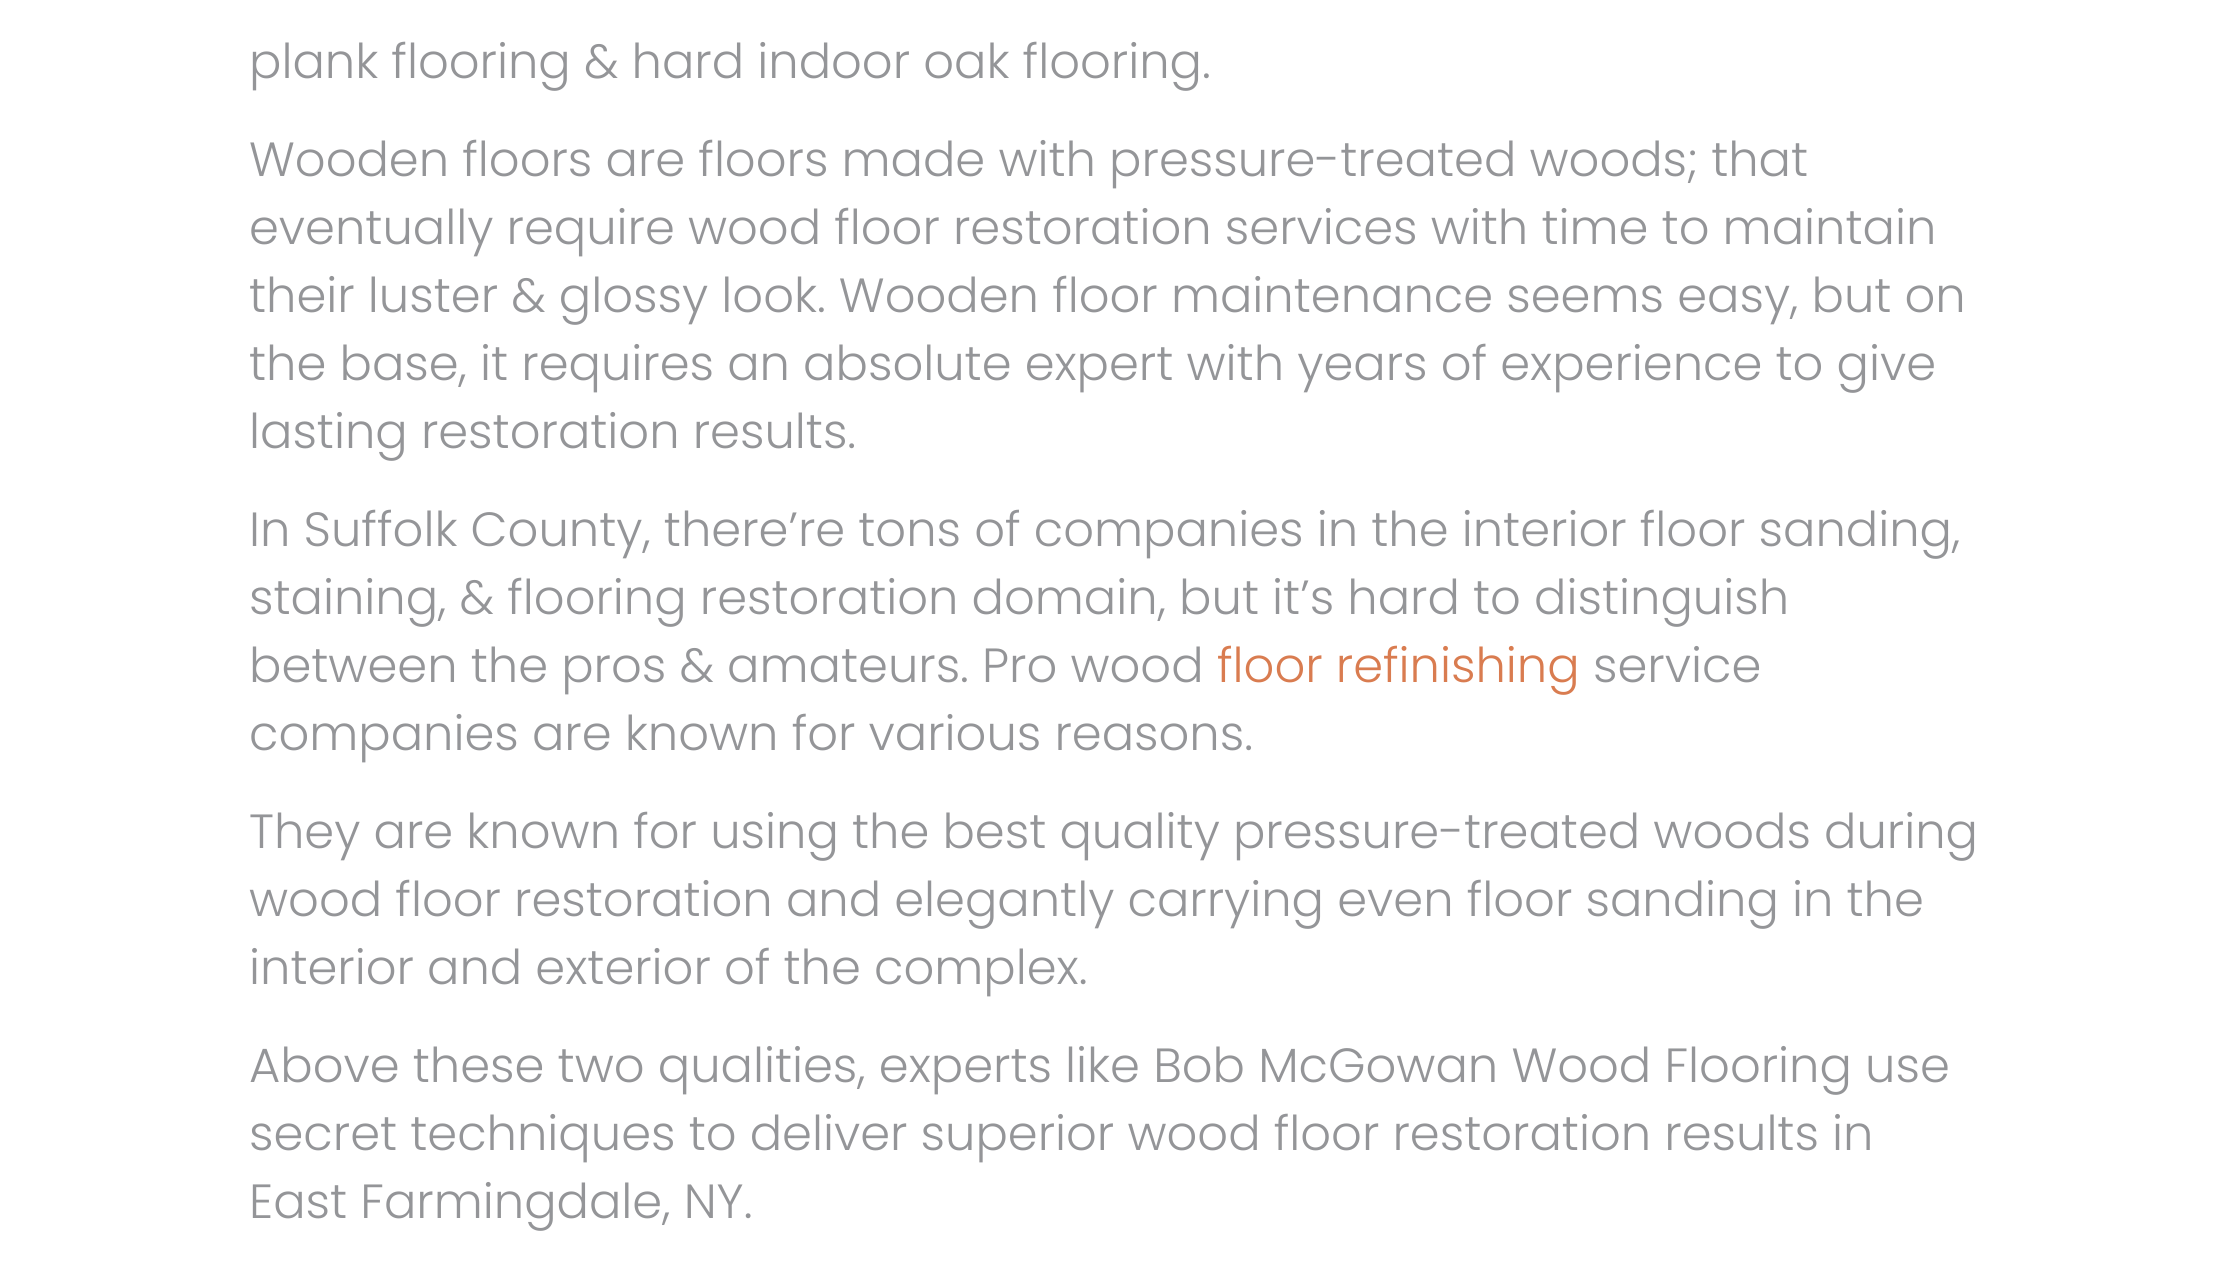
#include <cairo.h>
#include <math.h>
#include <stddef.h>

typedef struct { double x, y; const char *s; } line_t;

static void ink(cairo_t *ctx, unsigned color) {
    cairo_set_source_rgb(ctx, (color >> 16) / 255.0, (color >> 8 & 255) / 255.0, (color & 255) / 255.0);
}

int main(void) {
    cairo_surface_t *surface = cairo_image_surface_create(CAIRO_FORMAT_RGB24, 2230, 1264);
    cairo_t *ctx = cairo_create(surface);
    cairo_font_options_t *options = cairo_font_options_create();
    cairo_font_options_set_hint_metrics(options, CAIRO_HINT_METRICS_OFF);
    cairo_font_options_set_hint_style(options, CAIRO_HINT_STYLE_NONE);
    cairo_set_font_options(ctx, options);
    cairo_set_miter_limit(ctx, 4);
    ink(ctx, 0xFFFFFF);
    cairo_paint(ctx);
    cairo_select_font_face(ctx, "Poppins Light", CAIRO_FONT_SLANT_NORMAL, CAIRO_FONT_WEIGHT_NORMAL);
    cairo_set_font_size(ctx, 48);
    ink(ctx, 0x949598);
    {
        static const line_t items[] = {
            {249, 78, "plank flooring & hard indoor oak flooring."},
            {249, 176, "Wooden floors are floors made with pressure-treated woods; that"},
            {249, 244, "eventually require wood floor restoration services with time to maintain"},
            {249, 312, "their luster & glossy look. Wooden floor maintenance seems easy, but on"},
            {249, 380, "the base, it requires an absolute expert with years of experience to give"},
            {249, 448, "lasting restoration results."},
            {249, 546, "In Suffolk County, there’re tons of companies in the interior floor sanding,"},
            {249, 614, "staining, & flooring restoration domain, but it’s hard to distinguish"},
            {249, 682, "between the pros & amateurs. Pro wood"},
        };
        for (size_t i = 0; i < sizeof items / sizeof *items; i++) {
            cairo_move_to(ctx, items[i].x, items[i].y);
            cairo_show_text(ctx, items[i].s);
        }
    }
    ink(ctx, 0xD97C50);
    cairo_move_to(ctx, 1217, 682);
    cairo_show_text(ctx, "floor refinishing");
    ink(ctx, 0x949598);
    {
        static const line_t items[] = {
            {1593, 682, "service"},
            {249, 750, "companies are known for various reasons."},
            {249, 848, "They are known for using the best quality pressure-treated woods during"},
            {249, 916, "wood floor restoration and elegantly carrying even floor sanding in the"},
            {249, 984, "interior and exterior of the complex."},
            {249, 1082, "Above these two qualities, experts like Bob McGowan Wood Flooring use"},
            {249, 1150, "secret techniques to deliver superior wood floor restoration results in"},
            {249, 1218, "East Farmingdale, NY."},
        };
        for (size_t i = 0; i < sizeof items / sizeof *items; i++) {
            cairo_move_to(ctx, items[i].x, items[i].y);
            cairo_show_text(ctx, items[i].s);
        }
    }
    cairo_surface_write_to_png(surface, "image.png");
    cairo_font_options_destroy(options);
    cairo_destroy(ctx);
    cairo_surface_destroy(surface);
    return 0;
}
